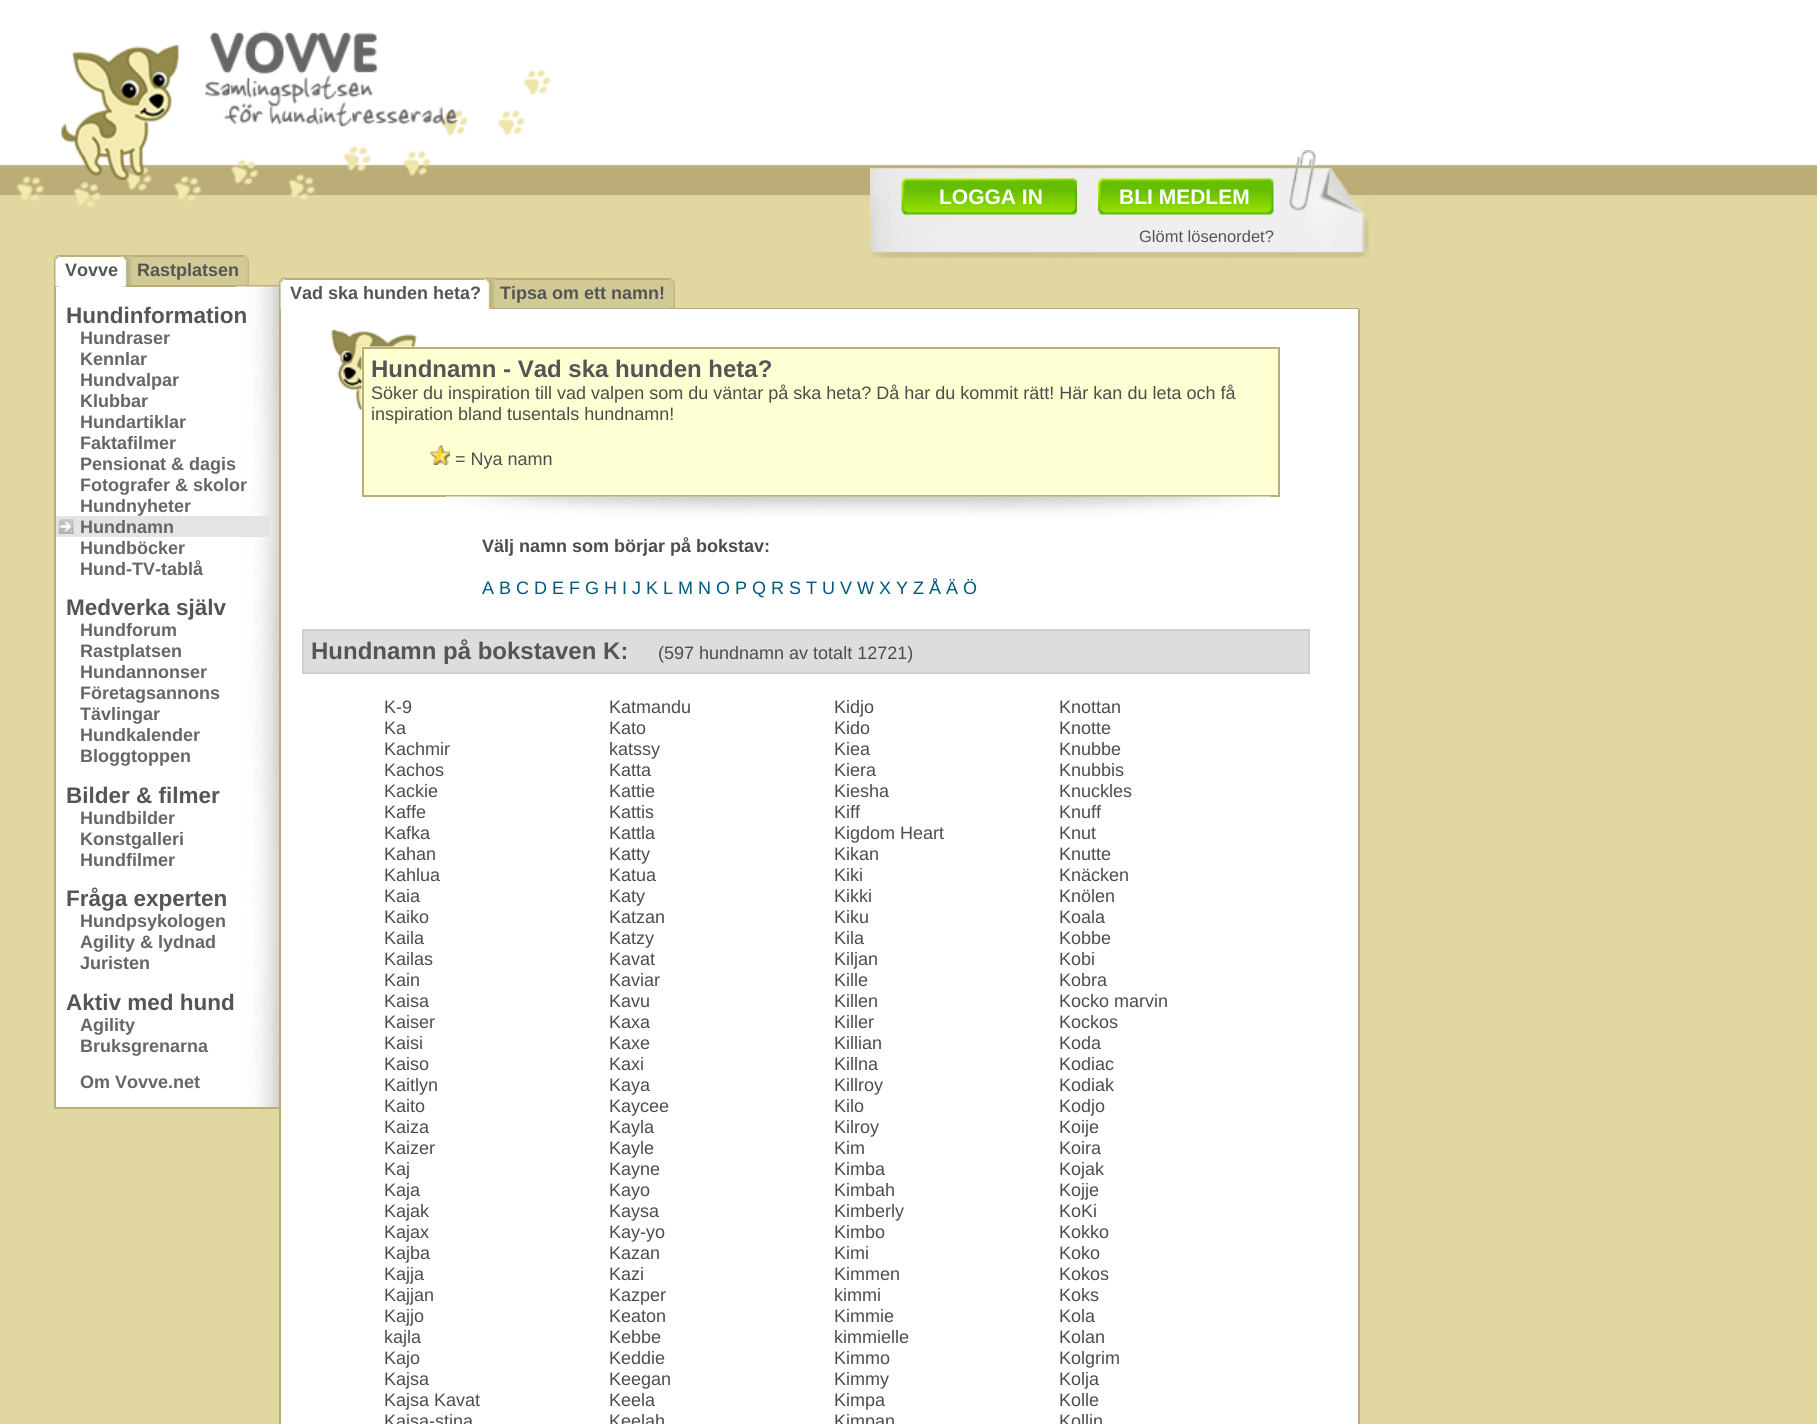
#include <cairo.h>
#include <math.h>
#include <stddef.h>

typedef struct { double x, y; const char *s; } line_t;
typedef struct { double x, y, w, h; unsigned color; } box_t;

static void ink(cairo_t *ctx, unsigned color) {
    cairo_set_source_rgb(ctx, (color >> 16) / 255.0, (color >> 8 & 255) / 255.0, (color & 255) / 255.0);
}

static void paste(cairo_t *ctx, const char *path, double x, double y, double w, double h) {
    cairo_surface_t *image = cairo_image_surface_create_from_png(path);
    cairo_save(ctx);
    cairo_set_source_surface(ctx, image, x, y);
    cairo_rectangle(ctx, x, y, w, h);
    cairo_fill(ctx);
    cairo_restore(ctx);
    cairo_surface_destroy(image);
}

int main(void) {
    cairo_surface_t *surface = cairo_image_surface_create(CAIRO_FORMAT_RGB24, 1817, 1424);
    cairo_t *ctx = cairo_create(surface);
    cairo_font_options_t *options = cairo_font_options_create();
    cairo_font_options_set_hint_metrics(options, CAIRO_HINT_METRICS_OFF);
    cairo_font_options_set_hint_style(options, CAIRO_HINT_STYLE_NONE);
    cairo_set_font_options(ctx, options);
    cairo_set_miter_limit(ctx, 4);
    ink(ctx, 0xE0D8A0);
    cairo_paint(ctx);
    paste(ctx, "media/1.png", 0, 0, 1817, 207);
    paste(ctx, "media/2.png", 61, 45, 118, 135);
    paste(ctx, "media/3.png", 205, 31, 253, 96);
    paste(ctx, "media/4.png", 870, 150, 500, 108);
    paste(ctx, "media/5.png", 901, 178, 176, 37);
    cairo_select_font_face(ctx, "Liberation Sans", CAIRO_FONT_SLANT_NORMAL, CAIRO_FONT_WEIGHT_BOLD);
    cairo_set_font_size(ctx, 21);
    ink(ctx, 0xFFFFFF);
    cairo_move_to(ctx, 939, 204);
    cairo_show_text(ctx, "LOGGA IN");
    paste(ctx, "media/6.png", 1098, 178, 176, 37);
    cairo_move_to(ctx, 1119, 204);
    cairo_show_text(ctx, "BLI MEDLEM");
    cairo_select_font_face(ctx, "Liberation Sans", CAIRO_FONT_SLANT_NORMAL, CAIRO_FONT_WEIGHT_NORMAL);
    cairo_set_font_size(ctx, 16.5);
    ink(ctx, 0x555555);
    cairo_move_to(ctx, 1139, 242);
    cairo_show_text(ctx, "Glömt lösenordet?");
    ink(ctx, 0xBBAD77);
    cairo_rectangle(ctx, 54, 285, 225, 2);
    cairo_fill(ctx);
    paste(ctx, "media/7.png", 54, 255, 6, 32);
    ink(ctx, 0xFFFFFF);
    cairo_rectangle(ctx, 60, 257, 62, 30);
    cairo_fill(ctx);
    ink(ctx, 0xBBAD77);
    cairo_rectangle(ctx, 60, 255, 62, 2);
    cairo_fill(ctx);
    cairo_select_font_face(ctx, "Liberation Sans", CAIRO_FONT_SLANT_NORMAL, CAIRO_FONT_WEIGHT_BOLD);
    cairo_set_font_size(ctx, 18);
    ink(ctx, 0x555555);
    cairo_move_to(ctx, 65, 276);
    cairo_show_text(ctx, "Vovve");
    paste(ctx, "media/8.png", 121, 255, 11, 32);
    ink(ctx, 0xD2CA96);
    cairo_rectangle(ctx, 132, 257, 111, 28);
    cairo_fill(ctx);
    ink(ctx, 0xBBAD77);
    cairo_rectangle(ctx, 132, 255, 111, 2);
    cairo_fill(ctx);
    ink(ctx, 0x555555);
    cairo_move_to(ctx, 137, 276);
    cairo_show_text(ctx, "Rastplatsen");
    paste(ctx, "media/9.png", 243, 255, 6, 31);
    ink(ctx, 0xFFFFFF);
    cairo_rectangle(ctx, 56, 287, 180, 820);
    cairo_fill(ctx);
    paste(ctx, "media/10.png", 235, 286, 44, 821);
    ink(ctx, 0xBBAD77);
    cairo_rectangle(ctx, 54, 1107, 227, 2);
    cairo_fill(ctx);
    cairo_rectangle(ctx, 54, 287, 2, 822);
    cairo_fill(ctx);
    cairo_set_font_size(ctx, 22.5);
    ink(ctx, 0x555555);
    cairo_move_to(ctx, 66, 323);
    cairo_show_text(ctx, "Hundinformation");
    cairo_set_font_size(ctx, 18);
    ink(ctx, 0x666666);
    {
        static const line_t items[] = {
            {80, 344, "Hundraser"},
            {80, 365, "Kennlar"},
            {80, 386, "Hundvalpar"},
            {80, 407, "Klubbar"},
            {80, 428, "Hundartiklar"},
            {80, 449, "Faktafilmer"},
            {80, 470, "Pensionat & dagis"},
            {80, 491, "Fotografer & skolor"},
            {80, 512, "Hundnyheter"},
        };
        for (size_t i = 0; i < sizeof items / sizeof *items; i++) {
            cairo_move_to(ctx, items[i].x, items[i].y);
            cairo_show_text(ctx, items[i].s);
        }
    }
    ink(ctx, 0xE4E4E4);
    cairo_rectangle(ctx, 56, 516, 214, 21);
    cairo_fill(ctx);
    paste(ctx, "media/11.png", 58, 519, 16, 15);
    ink(ctx, 0x666666);
    {
        static const line_t items[] = {
            {80, 533, "Hundnamn"},
            {80, 554, "Hundböcker"},
            {80, 575, "Hund-TV-tablå"},
        };
        for (size_t i = 0; i < sizeof items / sizeof *items; i++) {
            cairo_move_to(ctx, items[i].x, items[i].y);
            cairo_show_text(ctx, items[i].s);
        }
    }
    cairo_set_font_size(ctx, 22.5);
    ink(ctx, 0x555555);
    cairo_move_to(ctx, 66, 615);
    cairo_show_text(ctx, "Medverka själv");
    cairo_set_font_size(ctx, 18);
    ink(ctx, 0x666666);
    {
        static const line_t items[] = {
            {80, 636, "Hundforum"},
            {80, 657, "Rastplatsen"},
            {80, 678, "Hundannonser"},
            {80, 699, "Företagsannons"},
            {80, 720, "Tävlingar"},
            {80, 741, "Hundkalender"},
            {80, 762, "Bloggtoppen"},
        };
        for (size_t i = 0; i < sizeof items / sizeof *items; i++) {
            cairo_move_to(ctx, items[i].x, items[i].y);
            cairo_show_text(ctx, items[i].s);
        }
    }
    cairo_set_font_size(ctx, 22.5);
    ink(ctx, 0x555555);
    cairo_move_to(ctx, 66, 803);
    cairo_show_text(ctx, "Bilder & filmer");
    cairo_set_font_size(ctx, 18);
    ink(ctx, 0x666666);
    {
        static const line_t items[] = {
            {80, 824, "Hundbilder"},
            {80, 845, "Konstgalleri"},
            {80, 866, "Hundfilmer"},
        };
        for (size_t i = 0; i < sizeof items / sizeof *items; i++) {
            cairo_move_to(ctx, items[i].x, items[i].y);
            cairo_show_text(ctx, items[i].s);
        }
    }
    cairo_set_font_size(ctx, 22.5);
    ink(ctx, 0x555555);
    cairo_move_to(ctx, 66, 906);
    cairo_show_text(ctx, "Fråga experten");
    cairo_set_font_size(ctx, 18);
    ink(ctx, 0x666666);
    {
        static const line_t items[] = {
            {80, 927, "Hundpsykologen"},
            {80, 948, "Agility & lydnad"},
            {80, 969, "Juristen"},
        };
        for (size_t i = 0; i < sizeof items / sizeof *items; i++) {
            cairo_move_to(ctx, items[i].x, items[i].y);
            cairo_show_text(ctx, items[i].s);
        }
    }
    cairo_set_font_size(ctx, 22.5);
    ink(ctx, 0x555555);
    cairo_move_to(ctx, 66, 1010);
    cairo_show_text(ctx, "Aktiv med hund");
    cairo_set_font_size(ctx, 18);
    ink(ctx, 0x666666);
    {
        static const line_t items[] = {
            {80, 1031, "Agility"},
            {80, 1052, "Bruksgrenarna"},
            {80, 1088, "Om Vovve.net"},
        };
        for (size_t i = 0; i < sizeof items / sizeof *items; i++) {
            cairo_move_to(ctx, items[i].x, items[i].y);
            cairo_show_text(ctx, items[i].s);
        }
    }
    ink(ctx, 0xBBAD77);
    cairo_rectangle(ctx, 495, 308, 864, 1);
    cairo_fill(ctx);
    paste(ctx, "media/12.png", 279, 277, 6, 32);
    ink(ctx, 0xFFFFFF);
    cairo_rectangle(ctx, 285, 280, 200, 29);
    cairo_fill(ctx);
    ink(ctx, 0xBBAD77);
    cairo_rectangle(ctx, 285, 278, 200, 2);
    cairo_fill(ctx);
    ink(ctx, 0x555555);
    cairo_move_to(ctx, 290, 299);
    cairo_show_text(ctx, "Vad ska hunden heta?");
    paste(ctx, "media/13.png", 484, 277, 11, 32);
    ink(ctx, 0xD2CA96);
    cairo_rectangle(ctx, 495, 280, 174, 28);
    cairo_fill(ctx);
    ink(ctx, 0xBBAD77);
    cairo_rectangle(ctx, 495, 278, 174, 2);
    cairo_fill(ctx);
    ink(ctx, 0x555555);
    cairo_move_to(ctx, 500, 299);
    cairo_show_text(ctx, "Tipsa om ett namn!");
    paste(ctx, "media/14.png", 669, 277, 6, 31);
    {
        static const box_t items[] = {
            {281, 309, 1077, 1115, 0xFFFFFF},
            {1358, 309, 2, 1115, 0xBBAD77},
            {279, 309, 2, 1115, 0xBBAD77},
        };
        for (size_t i = 0; i < sizeof items / sizeof *items; i++) {
            ink(ctx, items[i].color);
            cairo_rectangle(ctx, items[i].x, items[i].y, items[i].w, items[i].h);
            cairo_fill(ctx);
        }
    }
    paste(ctx, "media/15.png", 331, 330, 86, 80);
    ink(ctx, 0xFFFFD4);
    cairo_rectangle(ctx, 363, 348, 916, 148);
    cairo_fill_preserve(ctx);
    ink(ctx, 0xBBAD77);
    cairo_stroke(ctx);
    cairo_set_font_size(ctx, 24);
    ink(ctx, 0x555555);
    cairo_move_to(ctx, 371, 377);
    cairo_show_text(ctx, "Hundnamn - Vad ska hunden heta?");
    cairo_select_font_face(ctx, "Liberation Sans", CAIRO_FONT_SLANT_NORMAL, CAIRO_FONT_WEIGHT_NORMAL);
    cairo_set_font_size(ctx, 18);
    ink(ctx, 0x4C4C4C);
    cairo_move_to(ctx, 371, 399);
    cairo_show_text(ctx, "Söker du inspiration till vad valpen som du väntar på ska heta? Då har du kommit rätt! Här kan du leta och få");
    cairo_move_to(ctx, 371, 420);
    cairo_show_text(ctx, "inspiration bland tusentals hundnamn!");
    paste(ctx, "media/16.png", 430, 445, 20, 20);
    cairo_move_to(ctx, 455, 465);
    cairo_show_text(ctx, "= Nya namn");
    paste(ctx, "media/17.png", 445, 496, 826, 23);
    cairo_select_font_face(ctx, "Liberation Sans", CAIRO_FONT_SLANT_NORMAL, CAIRO_FONT_WEIGHT_BOLD);
    cairo_move_to(ctx, 482, 552);
    cairo_show_text(ctx, "Välj namn som börjar på bokstav:");
    cairo_select_font_face(ctx, "Liberation Sans", CAIRO_FONT_SLANT_NORMAL, CAIRO_FONT_WEIGHT_NORMAL);
    ink(ctx, 0x00587D);
    cairo_move_to(ctx, 482, 594);
    cairo_show_text(ctx, "A B C D E F G H I J K L M N O P Q R S T U V W X Y Z Å Ä Ö");
    ink(ctx, 0xDDDDDD);
    cairo_rectangle(ctx, 303, 630, 1006, 43);
    cairo_fill_preserve(ctx);
    ink(ctx, 0xD0D0D0);
    cairo_stroke(ctx);
    cairo_select_font_face(ctx, "Liberation Sans", CAIRO_FONT_SLANT_NORMAL, CAIRO_FONT_WEIGHT_BOLD);
    cairo_set_font_size(ctx, 24);
    ink(ctx, 0x555555);
    cairo_move_to(ctx, 311, 659);
    cairo_show_text(ctx, "Hundnamn på bokstaven K:");
    cairo_select_font_face(ctx, "Liberation Sans", CAIRO_FONT_SLANT_NORMAL, CAIRO_FONT_WEIGHT_NORMAL);
    cairo_set_font_size(ctx, 18);
    ink(ctx, 0x4C4C4C);
    {
        static const line_t items[] = {
            {658, 659, "(597 hundnamn av totalt 12721)"},
            {384, 713, "K-9"},
            {384, 734, "Ka"},
            {384, 755, "Kachmir"},
            {384, 776, "Kachos"},
            {384, 797, "Kackie"},
            {384, 818, "Kaffe"},
            {384, 839, "Kafka"},
            {384, 860, "Kahan"},
            {384, 881, "Kahlua"},
            {384, 902, "Kaia"},
            {384, 923, "Kaiko"},
            {384, 944, "Kaila"},
            {384, 965, "Kailas"},
            {384, 986, "Kain"},
            {384, 1007, "Kaisa"},
            {384, 1028, "Kaiser"},
            {384, 1049, "Kaisi"},
            {384, 1070, "Kaiso"},
            {384, 1091, "Kaitlyn"},
            {384, 1112, "Kaito"},
            {384, 1133, "Kaiza"},
            {384, 1154, "Kaizer"},
            {384, 1175, "Kaj"},
            {384, 1196, "Kaja"},
            {384, 1217, "Kajak"},
            {384, 1238, "Kajax"},
            {384, 1259, "Kajba"},
            {384, 1280, "Kajja"},
            {384, 1301, "Kajjan"},
            {384, 1322, "Kajjo"},
            {384, 1343, "kajla"},
            {384, 1364, "Kajo"},
            {384, 1385, "Kajsa"},
            {384, 1406, "Kajsa Kavat"},
            {384, 1427, "Kajsa-stina"},
            {609, 713, "Katmandu"},
            {609, 734, "Kato"},
            {609, 755, "katssy"},
            {609, 776, "Katta"},
            {609, 797, "Kattie"},
            {609, 818, "Kattis"},
            {609, 839, "Kattla"},
            {609, 860, "Katty"},
            {609, 881, "Katua"},
            {609, 902, "Katy"},
            {609, 923, "Katzan"},
            {609, 944, "Katzy"},
            {609, 965, "Kavat"},
            {609, 986, "Kaviar"},
            {609, 1007, "Kavu"},
            {609, 1028, "Kaxa"},
            {609, 1049, "Kaxe"},
            {609, 1070, "Kaxi"},
            {609, 1091, "Kaya"},
            {609, 1112, "Kaycee"},
            {609, 1133, "Kayla"},
            {609, 1154, "Kayle"},
            {609, 1175, "Kayne"},
            {609, 1196, "Kayo"},
            {609, 1217, "Kaysa"},
            {609, 1238, "Kay-yo"},
            {609, 1259, "Kazan"},
            {609, 1280, "Kazi"},
            {609, 1301, "Kazper"},
            {609, 1322, "Keaton"},
            {609, 1343, "Kebbe"},
            {609, 1364, "Keddie"},
            {609, 1385, "Keegan"},
            {609, 1406, "Keela"},
            {609, 1427, "Keelah"},
            {834, 713, "Kidjo"},
            {834, 734, "Kido"},
            {834, 755, "Kiea"},
            {834, 776, "Kiera"},
            {834, 797, "Kiesha"},
            {834, 818, "Kiff"},
            {834, 839, "Kigdom Heart"},
            {834, 860, "Kikan"},
            {834, 881, "Kiki"},
            {834, 902, "Kikki"},
            {834, 923, "Kiku"},
            {834, 944, "Kila"},
            {834, 965, "Kiljan"},
            {834, 986, "Kille"},
            {834, 1007, "Killen"},
            {834, 1028, "Killer"},
            {834, 1049, "Killian"},
            {834, 1070, "Killna"},
            {834, 1091, "Killroy"},
            {834, 1112, "Kilo"},
            {834, 1133, "Kilroy"},
            {834, 1154, "Kim"},
            {834, 1175, "Kimba"},
            {834, 1196, "Kimbah"},
            {834, 1217, "Kimberly"},
            {834, 1238, "Kimbo"},
            {834, 1259, "Kimi"},
            {834, 1280, "Kimmen"},
            {834, 1301, "kimmi"},
            {834, 1322, "Kimmie"},
            {834, 1343, "kimmielle"},
            {834, 1364, "Kimmo"},
            {834, 1385, "Kimmy"},
            {834, 1406, "Kimpa"},
            {834, 1427, "Kimpan"},
            {1059, 713, "Knottan"},
            {1059, 734, "Knotte"},
            {1059, 755, "Knubbe"},
            {1059, 776, "Knubbis"},
            {1059, 797, "Knuckles"},
            {1059, 818, "Knuff"},
            {1059, 839, "Knut"},
            {1059, 860, "Knutte"},
            {1059, 881, "Knäcken"},
            {1059, 902, "Knölen"},
            {1059, 923, "Koala"},
            {1059, 944, "Kobbe"},
            {1059, 965, "Kobi"},
            {1059, 986, "Kobra"},
            {1059, 1007, "Kocko marvin"},
            {1059, 1028, "Kockos"},
            {1059, 1049, "Koda"},
            {1059, 1070, "Kodiac"},
            {1059, 1091, "Kodiak"},
            {1059, 1112, "Kodjo"},
            {1059, 1133, "Koije"},
            {1059, 1154, "Koira"},
            {1059, 1175, "Kojak"},
            {1059, 1196, "Kojje"},
            {1059, 1217, "KoKi"},
            {1059, 1238, "Kokko"},
            {1059, 1259, "Koko"},
            {1059, 1280, "Kokos"},
            {1059, 1301, "Koks"},
            {1059, 1322, "Kola"},
            {1059, 1343, "Kolan"},
            {1059, 1364, "Kolgrim"},
            {1059, 1385, "Kolja"},
            {1059, 1406, "Kolle"},
            {1059, 1427, "Kollin"},
        };
        for (size_t i = 0; i < sizeof items / sizeof *items; i++) {
            cairo_move_to(ctx, items[i].x, items[i].y);
            cairo_show_text(ctx, items[i].s);
        }
    }
    cairo_surface_write_to_png(surface, "image.png");
    cairo_font_options_destroy(options);
    cairo_destroy(ctx);
    cairo_surface_destroy(surface);
    return 0;
}
